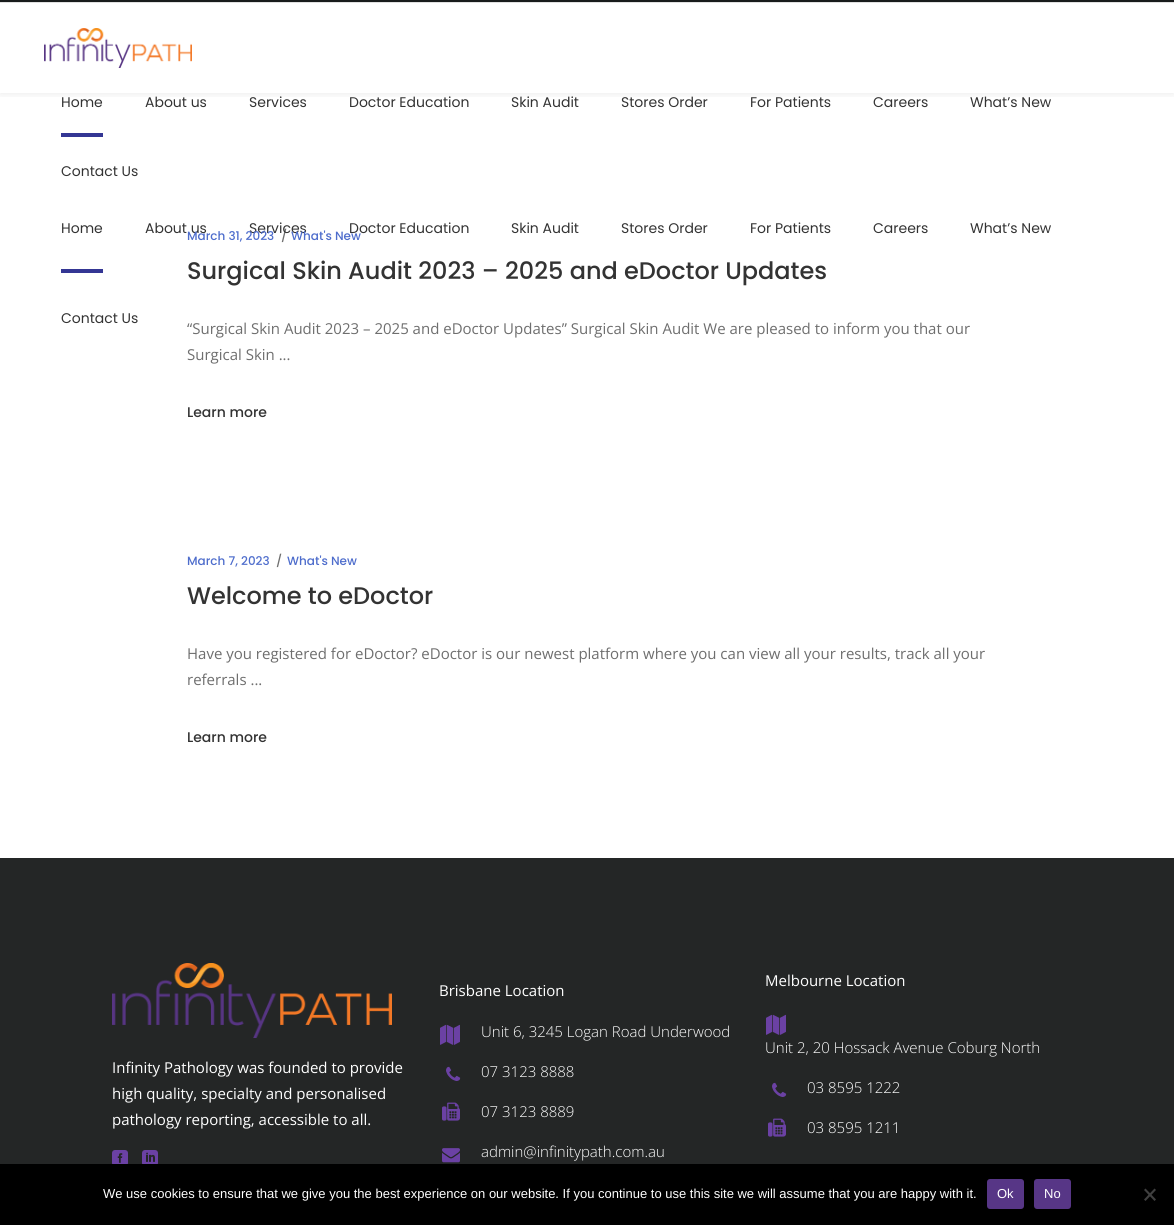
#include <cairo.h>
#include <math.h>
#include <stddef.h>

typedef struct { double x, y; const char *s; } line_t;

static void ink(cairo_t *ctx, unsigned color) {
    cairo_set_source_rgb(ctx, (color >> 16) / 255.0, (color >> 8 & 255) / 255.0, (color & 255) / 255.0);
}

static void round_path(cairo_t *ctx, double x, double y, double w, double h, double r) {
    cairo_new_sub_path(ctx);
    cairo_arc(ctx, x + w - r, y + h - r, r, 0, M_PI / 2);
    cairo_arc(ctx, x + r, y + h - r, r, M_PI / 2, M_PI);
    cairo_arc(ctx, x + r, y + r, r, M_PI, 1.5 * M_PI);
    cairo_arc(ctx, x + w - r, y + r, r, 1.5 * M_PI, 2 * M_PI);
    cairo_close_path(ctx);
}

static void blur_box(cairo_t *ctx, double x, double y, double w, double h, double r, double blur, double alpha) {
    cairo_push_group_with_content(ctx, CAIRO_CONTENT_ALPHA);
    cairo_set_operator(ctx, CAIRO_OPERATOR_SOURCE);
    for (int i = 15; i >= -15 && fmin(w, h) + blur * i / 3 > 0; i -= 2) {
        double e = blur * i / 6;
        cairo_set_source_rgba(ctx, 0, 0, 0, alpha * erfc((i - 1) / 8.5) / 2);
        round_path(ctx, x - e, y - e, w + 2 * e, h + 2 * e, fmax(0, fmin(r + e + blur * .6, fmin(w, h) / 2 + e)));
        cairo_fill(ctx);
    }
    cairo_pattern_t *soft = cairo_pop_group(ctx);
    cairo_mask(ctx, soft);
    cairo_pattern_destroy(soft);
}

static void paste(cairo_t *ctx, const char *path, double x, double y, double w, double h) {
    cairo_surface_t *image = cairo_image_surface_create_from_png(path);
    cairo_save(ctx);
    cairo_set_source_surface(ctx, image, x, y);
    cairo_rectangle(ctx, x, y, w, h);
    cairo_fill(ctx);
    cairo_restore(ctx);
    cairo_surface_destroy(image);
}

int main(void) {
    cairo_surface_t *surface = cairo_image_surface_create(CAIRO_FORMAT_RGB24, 1174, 1225);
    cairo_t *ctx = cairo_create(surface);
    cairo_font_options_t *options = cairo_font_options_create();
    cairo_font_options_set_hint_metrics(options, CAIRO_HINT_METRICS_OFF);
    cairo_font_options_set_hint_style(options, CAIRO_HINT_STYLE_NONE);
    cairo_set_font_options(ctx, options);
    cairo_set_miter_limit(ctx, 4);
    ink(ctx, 0xFFFFFF);
    cairo_paint(ctx);
    cairo_save(ctx);
    cairo_rectangle(ctx, 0, 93, 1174, 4);
    cairo_clip(ctx);
    ink(ctx, 0x000000);
    blur_box(ctx, 0, 5, 1174, 90, 0, 4, 0.07);
    cairo_restore(ctx);
    ink(ctx, 0x181B1B);
    cairo_rectangle(ctx, 0, 0, 1174, 2);
    cairo_fill(ctx);
    ink(ctx, 0xE0E0E0);
    cairo_rectangle(ctx, 0, 2, 1174, 1);
    cairo_fill(ctx);
    cairo_select_font_face(ctx, "Poppins", CAIRO_FONT_SLANT_NORMAL, CAIRO_FONT_WEIGHT_NORMAL);
    cairo_set_font_size(ctx, 14);
    ink(ctx, 0x333333);
    {
        static const line_t items[] = {
            {61, 107, "Home"},
            {145, 107, "About us"},
            {249, 107, "Services"},
            {349, 107, "Doctor Education"},
            {511, 107, "Skin Audit"},
            {621, 107, "Stores Order"},
            {750, 107, "For Patients"},
            {873, 107, "Careers"},
            {970, 107, "What’s New"},
        };
        for (size_t i = 0; i < sizeof items / sizeof *items; i++) {
            cairo_move_to(ctx, items[i].x, items[i].y);
            cairo_show_text(ctx, items[i].s);
        }
    }
    ink(ctx, 0x343694);
    cairo_rectangle(ctx, 61, 133, 42, 4);
    cairo_fill(ctx);
    ink(ctx, 0x333333);
    cairo_move_to(ctx, 61, 176);
    cairo_show_text(ctx, "Contact Us");
    paste(ctx, "media/1.png", 44, 28, 148, 40);
    cairo_move_to(ctx, 61, 233);
    cairo_show_text(ctx, "Home");
    cairo_move_to(ctx, 145, 233);
    cairo_show_text(ctx, "About us");
    cairo_select_font_face(ctx, "Poppins Medium", CAIRO_FONT_SLANT_NORMAL, CAIRO_FONT_WEIGHT_NORMAL);
    cairo_set_font_size(ctx, 12);
    ink(ctx, 0x6E6E6E);
    cairo_move_to(ctx, 281, 240);
    cairo_show_text(ctx, "/");
    cairo_select_font_face(ctx, "Poppins", CAIRO_FONT_SLANT_NORMAL, CAIRO_FONT_WEIGHT_NORMAL);
    cairo_set_font_size(ctx, 14);
    ink(ctx, 0x333333);
    {
        static const line_t items[] = {
            {249, 233, "Services"},
            {349, 233, "Doctor Education"},
            {511, 233, "Skin Audit"},
            {621, 233, "Stores Order"},
            {750, 233, "For Patients"},
            {873, 233, "Careers"},
            {970, 233, "What’s New"},
        };
        for (size_t i = 0; i < sizeof items / sizeof *items; i++) {
            cairo_move_to(ctx, items[i].x, items[i].y);
            cairo_show_text(ctx, items[i].s);
        }
    }
    ink(ctx, 0x343694);
    cairo_rectangle(ctx, 61, 269, 42, 4);
    cairo_fill(ctx);
    ink(ctx, 0x333333);
    cairo_move_to(ctx, 61, 323);
    cairo_show_text(ctx, "Contact Us");
    cairo_select_font_face(ctx, "Poppins Medium", CAIRO_FONT_SLANT_NORMAL, CAIRO_FONT_WEIGHT_NORMAL);
    cairo_set_font_size(ctx, 12);
    ink(ctx, 0x4E6DCC);
    cairo_move_to(ctx, 187, 240);
    cairo_show_text(ctx, "March 31, 2023");
    cairo_move_to(ctx, 291, 240);
    cairo_show_text(ctx, "What's New");
    cairo_set_font_size(ctx, 24);
    ink(ctx, 0x333333);
    cairo_move_to(ctx, 187, 279);
    cairo_show_text(ctx, "Surgical Skin Audit 2023 – 2025 and eDoctor Updates");
    cairo_select_font_face(ctx, "Open Sans", CAIRO_FONT_SLANT_NORMAL, CAIRO_FONT_WEIGHT_NORMAL);
    cairo_set_font_size(ctx, 15);
    ink(ctx, 0x6E6E6E);
    cairo_move_to(ctx, 187, 334);
    cairo_show_text(ctx, "“Surgical Skin Audit 2023 – 2025 and eDoctor Updates” Surgical Skin Audit We are pleased to inform you that our");
    cairo_move_to(ctx, 187, 360);
    cairo_show_text(ctx, "Surgical Skin ...");
    cairo_select_font_face(ctx, "Poppins Medium", CAIRO_FONT_SLANT_NORMAL, CAIRO_FONT_WEIGHT_NORMAL);
    cairo_set_font_size(ctx, 14);
    ink(ctx, 0x333333);
    cairo_move_to(ctx, 187, 417);
    cairo_show_text(ctx, "Learn more");
    cairo_set_font_size(ctx, 12);
    ink(ctx, 0x4E6DCC);
    cairo_move_to(ctx, 187, 565);
    cairo_show_text(ctx, "March 7, 2023");
    ink(ctx, 0x6E6E6E);
    cairo_move_to(ctx, 276, 565);
    cairo_show_text(ctx, "/");
    ink(ctx, 0x4E6DCC);
    cairo_move_to(ctx, 287, 565);
    cairo_show_text(ctx, "What's New");
    cairo_set_font_size(ctx, 24);
    ink(ctx, 0x333333);
    cairo_move_to(ctx, 187, 604);
    cairo_show_text(ctx, "Welcome to eDoctor");
    cairo_select_font_face(ctx, "Open Sans", CAIRO_FONT_SLANT_NORMAL, CAIRO_FONT_WEIGHT_NORMAL);
    cairo_set_font_size(ctx, 15);
    ink(ctx, 0x6E6E6E);
    cairo_move_to(ctx, 187, 659);
    cairo_show_text(ctx, "Have you registered for eDoctor? eDoctor is our newest platform where you can view all your results, track all your");
    cairo_move_to(ctx, 187, 685);
    cairo_show_text(ctx, "referrals ...");
    cairo_select_font_face(ctx, "Poppins Medium", CAIRO_FONT_SLANT_NORMAL, CAIRO_FONT_WEIGHT_NORMAL);
    cairo_set_font_size(ctx, 14);
    ink(ctx, 0x333333);
    cairo_move_to(ctx, 187, 742);
    cairo_show_text(ctx, "Learn more");
    ink(ctx, 0x242626);
    cairo_rectangle(ctx, 0, 858, 1174, 306);
    cairo_fill(ctx);
    paste(ctx, "media/2.png", 112, 963, 280, 75);
    cairo_select_font_face(ctx, "Open Sans", CAIRO_FONT_SLANT_NORMAL, CAIRO_FONT_WEIGHT_NORMAL);
    cairo_set_font_size(ctx, 15);
    ink(ctx, 0xFFFFFF);
    {
        static const line_t items[] = {
            {112, 1073, "Infinity Pathology was founded to provide"},
            {112, 1099, "high quality, specialty and personalised"},
            {112, 1125, "pathology reporting, accessible to all."},
        };
        for (size_t i = 0; i < sizeof items / sizeof *items; i++) {
            cairo_move_to(ctx, items[i].x, items[i].y);
            cairo_show_text(ctx, items[i].s);
        }
    }
    paste(ctx, "media/3.png", 112, 1150, 16, 14);
    paste(ctx, "media/4.png", 142, 1150, 16, 14);
    cairo_move_to(ctx, 439, 996);
    cairo_show_text(ctx, "Brisbane Location");
    paste(ctx, "media/5.png", 440, 1024, 20, 21);
    cairo_select_font_face(ctx, "Open Sans Light", CAIRO_FONT_SLANT_NORMAL, CAIRO_FONT_WEIGHT_NORMAL);
    cairo_move_to(ctx, 481, 1037);
    cairo_show_text(ctx, "Unit 6, 3245 Logan Road Underwood");
    paste(ctx, "media/6.png", 446, 1066, 15, 15);
    cairo_move_to(ctx, 481, 1077);
    cairo_show_text(ctx, "07 3123 8888");
    paste(ctx, "media/7.png", 442, 1102, 18, 19);
    cairo_move_to(ctx, 481, 1117);
    cairo_show_text(ctx, "07 3123 8889");
    paste(ctx, "media/8.png", 442, 1148, 18, 15);
    cairo_move_to(ctx, 481, 1157);
    cairo_show_text(ctx, "admin@infinitypath.com.au");
    cairo_select_font_face(ctx, "Open Sans", CAIRO_FONT_SLANT_NORMAL, CAIRO_FONT_WEIGHT_NORMAL);
    cairo_move_to(ctx, 765, 986);
    cairo_show_text(ctx, "Melbourne Location");
    paste(ctx, "media/5.png", 766, 1014, 20, 21);
    cairo_select_font_face(ctx, "Open Sans Light", CAIRO_FONT_SLANT_NORMAL, CAIRO_FONT_WEIGHT_NORMAL);
    cairo_move_to(ctx, 765, 1053);
    cairo_show_text(ctx, "Unit 2, 20 Hossack Avenue Coburg North");
    paste(ctx, "media/6.png", 772, 1082, 15, 15);
    cairo_move_to(ctx, 807, 1093);
    cairo_show_text(ctx, "03 8595 1222");
    paste(ctx, "media/7.png", 768, 1118, 18, 19);
    cairo_move_to(ctx, 807, 1133);
    cairo_show_text(ctx, "03 8595 1211");
    ink(ctx, 0x000000);
    cairo_rectangle(ctx, 0, 1164, 1174, 61);
    cairo_fill(ctx);
    cairo_select_font_face(ctx, "Liberation Sans", CAIRO_FONT_SLANT_NORMAL, CAIRO_FONT_WEIGHT_NORMAL);
    cairo_set_font_size(ctx, 13);
    ink(ctx, 0xFFFFFF);
    cairo_move_to(ctx, 103, 1198);
    cairo_show_text(ctx, "We use cookies to ensure that we give you the best experience on our website. If you continue to use this site we will assume that you are happy with it.");
    ink(ctx, 0x573686);
    round_path(ctx, 987, 1179, 37, 30, 3);
    cairo_fill(ctx);
    ink(ctx, 0xFFFFFF);
    cairo_move_to(ctx, 997, 1198);
    cairo_show_text(ctx, "Ok");
    ink(ctx, 0x573686);
    round_path(ctx, 1034, 1179, 37, 30, 3);
    cairo_fill(ctx);
    ink(ctx, 0xFFFFFF);
    cairo_move_to(ctx, 1044, 1198);
    cairo_show_text(ctx, "No");
    ink(ctx, 0x404040);
    cairo_new_path(ctx);
    cairo_move_to(ctx, 1154.5, 1188.5);
    cairo_line_to(ctx, 1156, 1190);
    cairo_line_to(ctx, 1145.5, 1201);
    cairo_line_to(ctx, 1144, 1199.5);
    cairo_close_path(ctx);
    cairo_fill(ctx);
    cairo_new_path(ctx);
    cairo_move_to(ctx, 1144, 1190);
    cairo_line_to(ctx, 1145.5, 1188.5);
    cairo_line_to(ctx, 1156, 1199.5);
    cairo_line_to(ctx, 1154.5, 1201);
    cairo_close_path(ctx);
    cairo_fill(ctx);
    cairo_surface_write_to_png(surface, "image.png");
    cairo_font_options_destroy(options);
    cairo_destroy(ctx);
    cairo_surface_destroy(surface);
    return 0;
}
